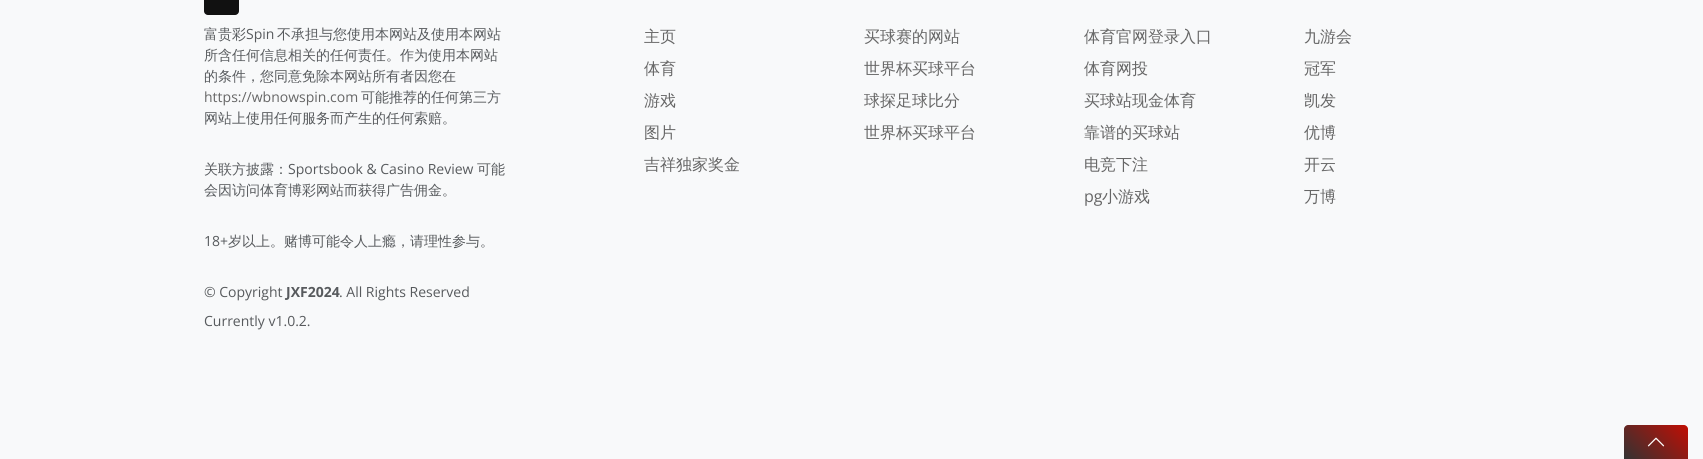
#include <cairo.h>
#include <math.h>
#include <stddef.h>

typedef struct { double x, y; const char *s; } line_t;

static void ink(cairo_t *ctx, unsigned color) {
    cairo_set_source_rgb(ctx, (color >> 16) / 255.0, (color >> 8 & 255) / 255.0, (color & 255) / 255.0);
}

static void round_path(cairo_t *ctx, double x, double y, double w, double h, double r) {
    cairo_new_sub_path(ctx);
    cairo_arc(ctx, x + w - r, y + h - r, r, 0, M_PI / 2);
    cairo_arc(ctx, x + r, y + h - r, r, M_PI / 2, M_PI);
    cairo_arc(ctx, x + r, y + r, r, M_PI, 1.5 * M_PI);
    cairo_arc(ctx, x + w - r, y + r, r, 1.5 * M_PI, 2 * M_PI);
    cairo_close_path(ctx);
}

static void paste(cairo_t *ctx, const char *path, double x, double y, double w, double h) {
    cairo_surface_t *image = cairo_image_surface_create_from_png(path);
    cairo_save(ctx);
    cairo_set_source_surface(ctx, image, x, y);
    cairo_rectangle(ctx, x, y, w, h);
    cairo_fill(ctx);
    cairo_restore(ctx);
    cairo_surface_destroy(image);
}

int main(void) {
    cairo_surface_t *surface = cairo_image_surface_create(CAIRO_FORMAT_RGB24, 1703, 459);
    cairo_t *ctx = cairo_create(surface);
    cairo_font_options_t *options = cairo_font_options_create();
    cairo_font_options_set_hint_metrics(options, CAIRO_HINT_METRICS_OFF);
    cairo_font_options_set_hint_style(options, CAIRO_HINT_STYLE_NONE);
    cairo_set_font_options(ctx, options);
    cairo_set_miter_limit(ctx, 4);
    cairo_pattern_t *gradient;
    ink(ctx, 0xF8F9FA);
    cairo_paint(ctx);
    ink(ctx, 0x111111);
    round_path(ctx, 204, -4, 35, 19, 4);
    cairo_fill(ctx);
    cairo_select_font_face(ctx, "WenQuanYi Zen Hei Medium", CAIRO_FONT_SLANT_NORMAL, CAIRO_FONT_WEIGHT_NORMAL);
    cairo_set_font_size(ctx, 14);
    ink(ctx, 0x575A5D);
    cairo_move_to(ctx, 204, 39);
    cairo_show_text(ctx, "富贵彩");
    cairo_select_font_face(ctx, "Open Sans", CAIRO_FONT_SLANT_NORMAL, CAIRO_FONT_WEIGHT_NORMAL);
    cairo_move_to(ctx, 246, 39);
    cairo_show_text(ctx, "Spin");
    cairo_select_font_face(ctx, "WenQuanYi Zen Hei Medium", CAIRO_FONT_SLANT_NORMAL, CAIRO_FONT_WEIGHT_NORMAL);
    {
        static const line_t items[] = {
            {277, 39, "不承担与您使用本网站及使用本网站"},
            {204, 60, "所含任何信息相关的任何责任。作为使用本网站"},
            {204, 81, "的条件，您同意免除本网站所有者因您在"},
        };
        for (size_t i = 0; i < sizeof items / sizeof *items; i++) {
            cairo_move_to(ctx, items[i].x, items[i].y);
            cairo_show_text(ctx, items[i].s);
        }
    }
    cairo_select_font_face(ctx, "Open Sans", CAIRO_FONT_SLANT_NORMAL, CAIRO_FONT_WEIGHT_NORMAL);
    ink(ctx, 0x666666);
    cairo_move_to(ctx, 204, 102);
    cairo_show_text(ctx, "https://wbnowspin.com");
    cairo_select_font_face(ctx, "WenQuanYi Zen Hei Medium", CAIRO_FONT_SLANT_NORMAL, CAIRO_FONT_WEIGHT_NORMAL);
    ink(ctx, 0x575A5D);
    {
        static const line_t items[] = {
            {361, 102, "可能推荐的任何第三方"},
            {204, 123, "网站上使用任何服务而产生的任何索赔。"},
            {204, 174, "关联方披露："},
        };
        for (size_t i = 0; i < sizeof items / sizeof *items; i++) {
            cairo_move_to(ctx, items[i].x, items[i].y);
            cairo_show_text(ctx, items[i].s);
        }
    }
    cairo_select_font_face(ctx, "Open Sans", CAIRO_FONT_SLANT_NORMAL, CAIRO_FONT_WEIGHT_NORMAL);
    cairo_move_to(ctx, 288, 174);
    cairo_show_text(ctx, "Sportsbook & Casino Review");
    cairo_select_font_face(ctx, "WenQuanYi Zen Hei Medium", CAIRO_FONT_SLANT_NORMAL, CAIRO_FONT_WEIGHT_NORMAL);
    cairo_move_to(ctx, 477, 174);
    cairo_show_text(ctx, "可能");
    cairo_move_to(ctx, 204, 195);
    cairo_show_text(ctx, "会因访问体育博彩网站而获得广告佣金。");
    cairo_select_font_face(ctx, "Open Sans", CAIRO_FONT_SLANT_NORMAL, CAIRO_FONT_WEIGHT_NORMAL);
    cairo_move_to(ctx, 204, 246);
    cairo_show_text(ctx, "18+");
    cairo_select_font_face(ctx, "WenQuanYi Zen Hei Medium", CAIRO_FONT_SLANT_NORMAL, CAIRO_FONT_WEIGHT_NORMAL);
    cairo_move_to(ctx, 228, 246);
    cairo_show_text(ctx, "岁以上。赌博可能令人上瘾，请理性参与。");
    cairo_select_font_face(ctx, "Open Sans", CAIRO_FONT_SLANT_NORMAL, CAIRO_FONT_WEIGHT_NORMAL);
    cairo_move_to(ctx, 204, 297);
    cairo_show_text(ctx, "© Copyright");
    cairo_select_font_face(ctx, "Open Sans", CAIRO_FONT_SLANT_NORMAL, CAIRO_FONT_WEIGHT_BOLD);
    cairo_move_to(ctx, 286, 297);
    cairo_show_text(ctx, "JXF2024");
    cairo_select_font_face(ctx, "Open Sans", CAIRO_FONT_SLANT_NORMAL, CAIRO_FONT_WEIGHT_NORMAL);
    cairo_move_to(ctx, 339, 297);
    cairo_show_text(ctx, ". All Rights Reserved");
    cairo_move_to(ctx, 204, 326);
    cairo_show_text(ctx, "Currently v1.0.2.");
    cairo_select_font_face(ctx, "WenQuanYi Zen Hei Medium", CAIRO_FONT_SLANT_NORMAL, CAIRO_FONT_WEIGHT_NORMAL);
    cairo_set_font_size(ctx, 16);
    ink(ctx, 0x666666);
    {
        static const line_t items[] = {
            {644, 42, "主页"},
            {644, 74, "体育"},
            {644, 106, "游戏"},
            {644, 138, "图片"},
            {644, 170, "吉祥独家奖金"},
            {864, 42, "买球赛的网站"},
            {864, 74, "世界杯买球平台"},
            {864, 106, "球探足球比分"},
            {864, 138, "世界杯买球平台"},
            {1084, 42, "体育官网登录入口"},
            {1084, 74, "体育网投"},
            {1084, 106, "买球站现金体育"},
            {1084, 138, "靠谱的买球站"},
            {1084, 170, "电竞下注"},
        };
        for (size_t i = 0; i < sizeof items / sizeof *items; i++) {
            cairo_move_to(ctx, items[i].x, items[i].y);
            cairo_show_text(ctx, items[i].s);
        }
    }
    cairo_select_font_face(ctx, "Open Sans", CAIRO_FONT_SLANT_NORMAL, CAIRO_FONT_WEIGHT_NORMAL);
    cairo_move_to(ctx, 1084, 202);
    cairo_show_text(ctx, "pg");
    cairo_select_font_face(ctx, "WenQuanYi Zen Hei Medium", CAIRO_FONT_SLANT_NORMAL, CAIRO_FONT_WEIGHT_NORMAL);
    {
        static const line_t items[] = {
            {1102, 202, "小游戏"},
            {1304, 42, "九游会"},
            {1304, 74, "冠军"},
            {1304, 106, "凯发"},
            {1304, 138, "优博"},
            {1304, 170, "开云"},
            {1304, 202, "万博"},
        };
        for (size_t i = 0; i < sizeof items / sizeof *items; i++) {
            cairo_move_to(ctx, items[i].x, items[i].y);
            cairo_show_text(ctx, items[i].s);
        }
    }
    gradient = cairo_pattern_create_linear(1632, 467, 1681, 418);
    cairo_pattern_add_color_stop_rgba(gradient, 0, 0.2, 0.2, 0.2, 1);
    cairo_pattern_add_color_stop_rgba(gradient, 1, 0.757, 0.055, 0.016, 1);
    cairo_set_source(ctx, gradient);
    cairo_pattern_destroy(gradient);
    cairo_new_path(ctx);
    cairo_move_to(ctx, 1628, 425);
    cairo_line_to(ctx, 1684, 425);
    cairo_curve_to(ctx, 1686, 425, 1688, 427, 1688, 429);
    cairo_line_to(ctx, 1688, 459);
    cairo_line_to(ctx, 1624, 459);
    cairo_line_to(ctx, 1624, 429);
    cairo_curve_to(ctx, 1624, 427, 1626, 425, 1628, 425);
    cairo_close_path(ctx);
    cairo_fill(ctx);
    paste(ctx, "media/1.png", 1647, 437, 18, 10);
    cairo_surface_write_to_png(surface, "image.png");
    cairo_font_options_destroy(options);
    cairo_destroy(ctx);
    cairo_surface_destroy(surface);
    return 0;
}
